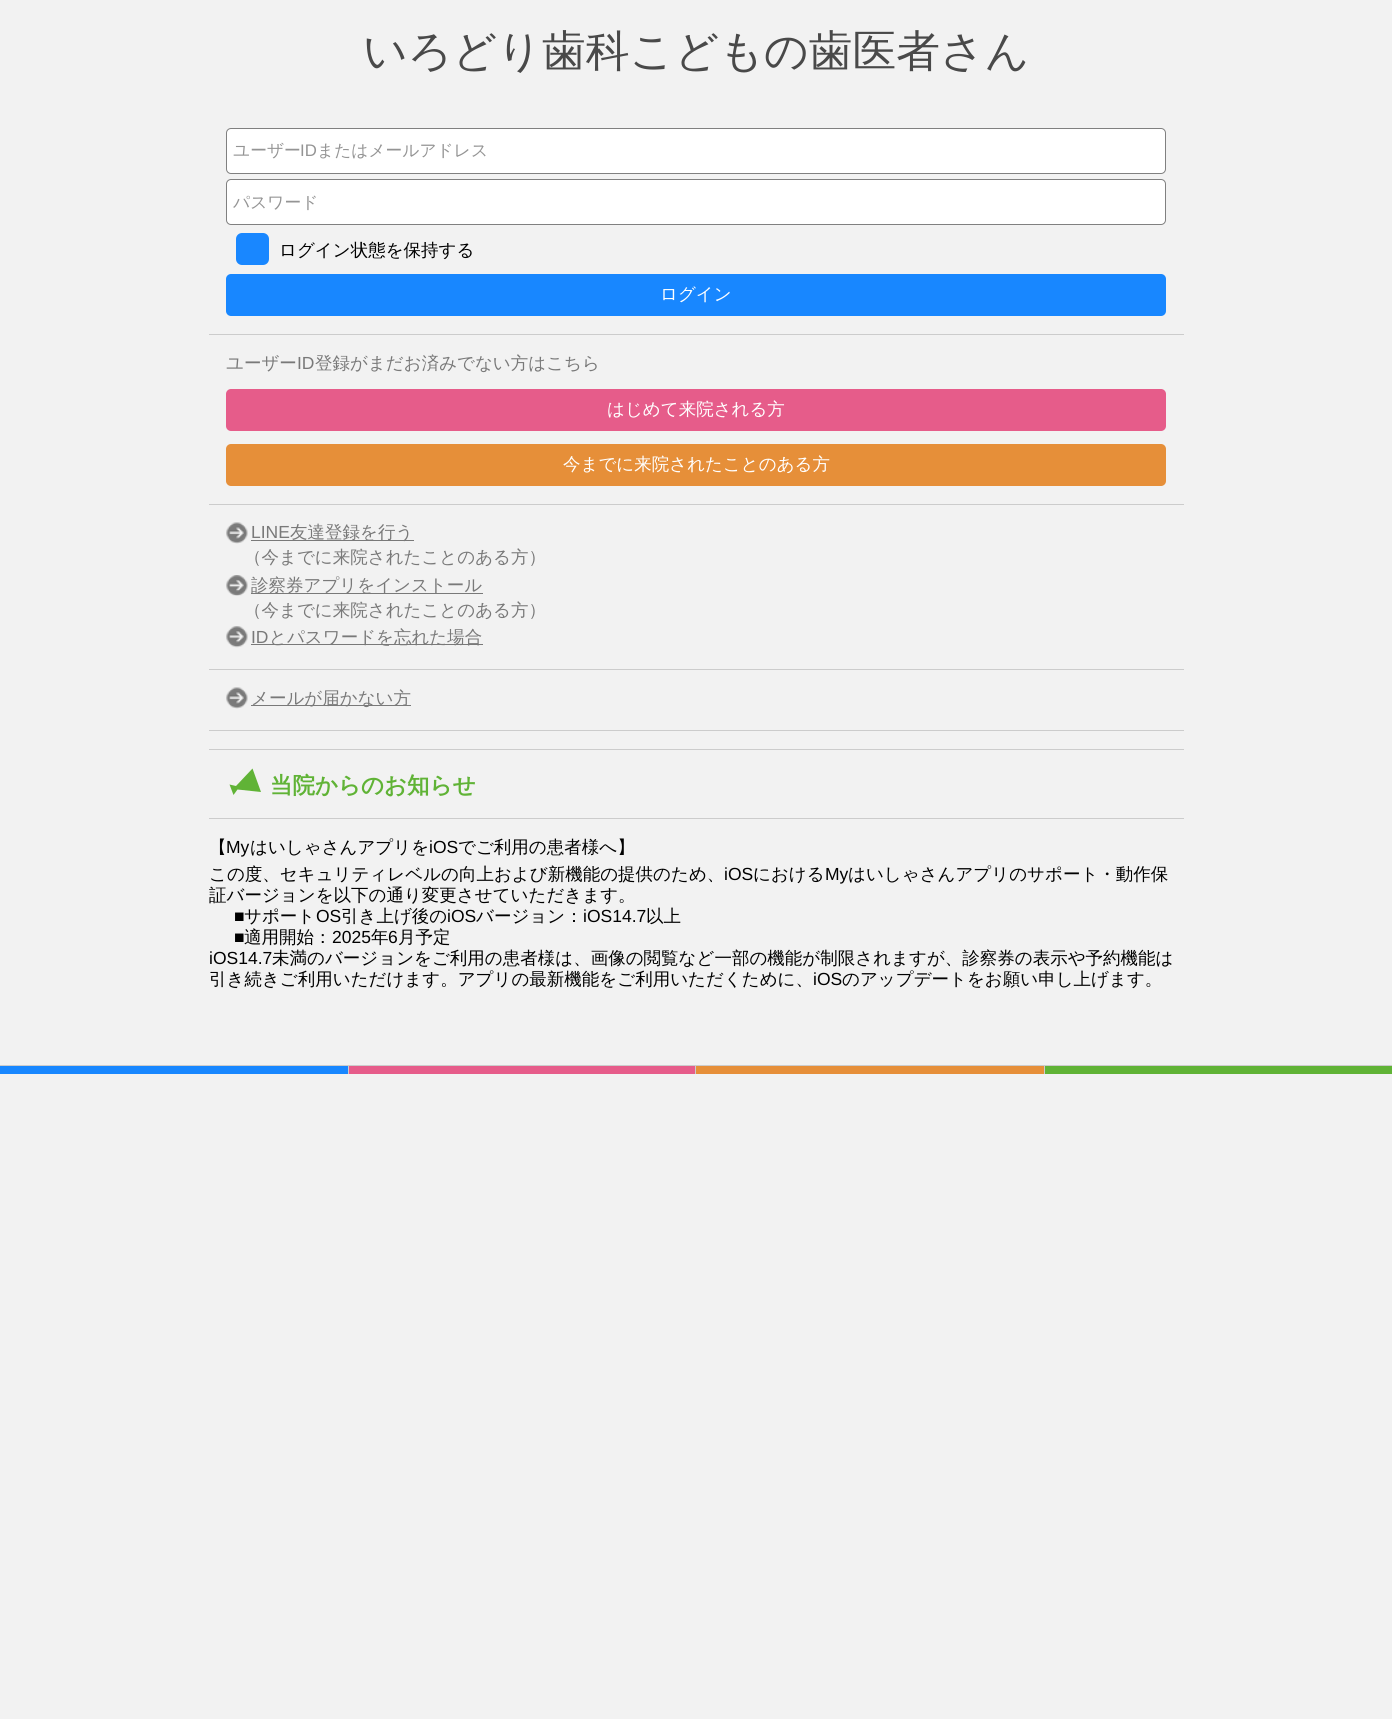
#include <cairo.h>
#include <math.h>
#include <stddef.h>

typedef struct { double x, y, w, h; unsigned color; } box_t;

static void ink(cairo_t *ctx, unsigned color) {
    cairo_set_source_rgb(ctx, (color >> 16) / 255.0, (color >> 8 & 255) / 255.0, (color & 255) / 255.0);
}

static void round_path(cairo_t *ctx, double x, double y, double w, double h, double r) {
    cairo_new_sub_path(ctx);
    cairo_arc(ctx, x + w - r, y + h - r, r, 0, M_PI / 2);
    cairo_arc(ctx, x + r, y + h - r, r, M_PI / 2, M_PI);
    cairo_arc(ctx, x + r, y + r, r, M_PI, 1.5 * M_PI);
    cairo_arc(ctx, x + w - r, y + r, r, 1.5 * M_PI, 2 * M_PI);
    cairo_close_path(ctx);
}

static void paste(cairo_t *ctx, const char *path, double x, double y, double w, double h) {
    cairo_surface_t *image = cairo_image_surface_create_from_png(path);
    cairo_save(ctx);
    cairo_set_source_surface(ctx, image, x, y);
    cairo_rectangle(ctx, x, y, w, h);
    cairo_fill(ctx);
    cairo_restore(ctx);
    cairo_surface_destroy(image);
}

int main(void) {
    cairo_surface_t *surface = cairo_image_surface_create(CAIRO_FORMAT_RGB24, 1392, 1719);
    cairo_t *ctx = cairo_create(surface);
    cairo_font_options_t *options = cairo_font_options_create();
    cairo_font_options_set_hint_metrics(options, CAIRO_HINT_METRICS_OFF);
    cairo_font_options_set_hint_style(options, CAIRO_HINT_STYLE_NONE);
    cairo_set_font_options(ctx, options);
    cairo_set_miter_limit(ctx, 4);
    ink(ctx, 0xF2F2F2);
    cairo_paint(ctx);
    cairo_select_font_face(ctx, "WenQuanYi Zen Hei Medium", CAIRO_FONT_SLANT_NORMAL, CAIRO_FONT_WEIGHT_NORMAL);
    cairo_set_font_size(ctx, 43.75);
    ink(ctx, 0x494949);
    cairo_move_to(ctx, 363, 66);
    cairo_show_text(ctx, "いろどり歯科こどもの歯医者さん");
    ink(ctx, 0xFFFFFF);
    round_path(ctx, 226.5, 128.5, 939, 45, 4.5);
    cairo_fill_preserve(ctx);
    ink(ctx, 0x808080);
    cairo_set_line_width(ctx, 1);
    cairo_stroke(ctx);
    cairo_set_font_size(ctx, 16.75);
    ink(ctx, 0x949494);
    cairo_move_to(ctx, 233, 156);
    cairo_show_text(ctx, "ユーザー");
    cairo_select_font_face(ctx, "Liberation Sans", CAIRO_FONT_SLANT_NORMAL, CAIRO_FONT_WEIGHT_NORMAL);
    cairo_move_to(ctx, 300, 156);
    cairo_show_text(ctx, "ID");
    cairo_select_font_face(ctx, "WenQuanYi Zen Hei Medium", CAIRO_FONT_SLANT_NORMAL, CAIRO_FONT_WEIGHT_NORMAL);
    cairo_move_to(ctx, 317, 156);
    cairo_show_text(ctx, "またはメールアドレス");
    ink(ctx, 0xFFFFFF);
    round_path(ctx, 226.5, 179.5, 939, 45, 4.5);
    cairo_fill_preserve(ctx);
    ink(ctx, 0x808080);
    cairo_stroke(ctx);
    ink(ctx, 0x949494);
    cairo_move_to(ctx, 233, 208);
    cairo_show_text(ctx, "パスワード");
    ink(ctx, 0x1987FF);
    round_path(ctx, 236, 233, 33, 32, 6);
    cairo_fill(ctx);
    cairo_set_font_size(ctx, 17.5);
    ink(ctx, 0x000000);
    cairo_move_to(ctx, 279, 256);
    cairo_show_text(ctx, "ログイン状態を保持する");
    ink(ctx, 0x1887FF);
    round_path(ctx, 226, 274, 940, 42, 5);
    cairo_fill(ctx);
    ink(ctx, 0xFFFFFF);
    cairo_move_to(ctx, 660, 300);
    cairo_show_text(ctx, "ログイン");
    ink(ctx, 0xCCCCCC);
    cairo_rectangle(ctx, 209, 334, 975, 1);
    cairo_fill(ctx);
    ink(ctx, 0x797979);
    cairo_move_to(ctx, 226, 369);
    cairo_show_text(ctx, "ユーザー");
    cairo_select_font_face(ctx, "Liberation Sans", CAIRO_FONT_SLANT_NORMAL, CAIRO_FONT_WEIGHT_NORMAL);
    cairo_move_to(ctx, 297, 369);
    cairo_show_text(ctx, "ID");
    cairo_select_font_face(ctx, "WenQuanYi Zen Hei Medium", CAIRO_FONT_SLANT_NORMAL, CAIRO_FONT_WEIGHT_NORMAL);
    cairo_move_to(ctx, 315, 369);
    cairo_show_text(ctx, "登録がまだお済みでない方はこちら");
    ink(ctx, 0xE65C8A);
    round_path(ctx, 226, 389, 940, 42, 5);
    cairo_fill(ctx);
    ink(ctx, 0xFFFFFF);
    cairo_move_to(ctx, 607, 415);
    cairo_show_text(ctx, "はじめて来院される方");
    ink(ctx, 0xE68F39);
    round_path(ctx, 226, 444, 940, 42, 5);
    cairo_fill(ctx);
    ink(ctx, 0xFFFFFF);
    cairo_move_to(ctx, 563, 470);
    cairo_show_text(ctx, "今までに来院されたことのある方");
    ink(ctx, 0xCCCCCC);
    cairo_rectangle(ctx, 209, 504, 975, 1);
    cairo_fill(ctx);
    paste(ctx, "media/1.png", 226, 522, 22, 22);
    cairo_select_font_face(ctx, "Liberation Sans", CAIRO_FONT_SLANT_NORMAL, CAIRO_FONT_WEIGHT_NORMAL);
    ink(ctx, 0x797979);
    cairo_move_to(ctx, 251, 538);
    cairo_show_text(ctx, "LINE");
    cairo_rectangle(ctx, 251, 540, 163, 1);
    cairo_fill(ctx);
    cairo_select_font_face(ctx, "WenQuanYi Zen Hei Medium", CAIRO_FONT_SLANT_NORMAL, CAIRO_FONT_WEIGHT_NORMAL);
    cairo_move_to(ctx, 290, 538);
    cairo_show_text(ctx, "友達登録を行う");
    cairo_move_to(ctx, 244, 563);
    cairo_show_text(ctx, "（今までに来院されたことのある方）");
    paste(ctx, "media/2.png", 226, 575, 22, 21);
    cairo_rectangle(ctx, 251, 593, 232, 1);
    cairo_fill(ctx);
    cairo_move_to(ctx, 251, 591);
    cairo_show_text(ctx, "診察券アプリをインストール");
    cairo_move_to(ctx, 244, 616);
    cairo_show_text(ctx, "（今までに来院されたことのある方）");
    paste(ctx, "media/3.png", 226, 626, 22, 22);
    cairo_select_font_face(ctx, "Liberation Sans", CAIRO_FONT_SLANT_NORMAL, CAIRO_FONT_WEIGHT_NORMAL);
    cairo_move_to(ctx, 251, 643);
    cairo_show_text(ctx, "ID");
    cairo_rectangle(ctx, 251, 644, 232, 1);
    cairo_fill(ctx);
    cairo_select_font_face(ctx, "WenQuanYi Zen Hei Medium", CAIRO_FONT_SLANT_NORMAL, CAIRO_FONT_WEIGHT_NORMAL);
    cairo_move_to(ctx, 269, 643);
    cairo_show_text(ctx, "とパスワードを忘れた場合");
    ink(ctx, 0xCCCCCC);
    cairo_rectangle(ctx, 209, 669, 975, 1);
    cairo_fill(ctx);
    paste(ctx, "media/1.png", 226, 687, 22, 22);
    ink(ctx, 0x797979);
    cairo_rectangle(ctx, 251, 705, 160, 1);
    cairo_fill(ctx);
    cairo_move_to(ctx, 251, 704);
    cairo_show_text(ctx, "メールが届かない方");
    ink(ctx, 0xCCCCCC);
    cairo_rectangle(ctx, 209, 730, 975, 1);
    cairo_fill(ctx);
    cairo_rectangle(ctx, 209, 749, 975, 1);
    cairo_fill(ctx);
    ink(ctx, 0x60B336);
    cairo_new_path(ctx);
    cairo_move_to(ctx, 236, 786);
    cairo_line_to(ctx, 229.5, 784.5);
    cairo_line_to(ctx, 233.5, 795);
    cairo_line_to(ctx, 237.5, 789.5);
    cairo_line_to(ctx, 261, 792);
    cairo_line_to(ctx, 252.5, 768.5);
    cairo_close_path(ctx);
    cairo_fill(ctx);
    cairo_select_font_face(ctx, "WenQuanYi Zen Hei", CAIRO_FONT_SLANT_NORMAL, CAIRO_FONT_WEIGHT_BOLD);
    cairo_set_font_size(ctx, 22.5);
    cairo_move_to(ctx, 270, 793);
    cairo_show_text(ctx, "当院からのお知らせ");
    ink(ctx, 0xCCCCCC);
    cairo_rectangle(ctx, 209, 818, 975, 1);
    cairo_fill(ctx);
    cairo_select_font_face(ctx, "WenQuanYi Zen Hei Medium", CAIRO_FONT_SLANT_NORMAL, CAIRO_FONT_WEIGHT_NORMAL);
    cairo_set_font_size(ctx, 17.5);
    ink(ctx, 0x000000);
    cairo_move_to(ctx, 209, 853);
    cairo_show_text(ctx, "【");
    cairo_select_font_face(ctx, "Liberation Sans", CAIRO_FONT_SLANT_NORMAL, CAIRO_FONT_WEIGHT_NORMAL);
    cairo_move_to(ctx, 226, 853);
    cairo_show_text(ctx, "My");
    cairo_select_font_face(ctx, "WenQuanYi Zen Hei Medium", CAIRO_FONT_SLANT_NORMAL, CAIRO_FONT_WEIGHT_NORMAL);
    cairo_move_to(ctx, 250, 853);
    cairo_show_text(ctx, "はいしゃさんアプリを");
    cairo_select_font_face(ctx, "Liberation Sans", CAIRO_FONT_SLANT_NORMAL, CAIRO_FONT_WEIGHT_NORMAL);
    cairo_move_to(ctx, 429, 853);
    cairo_show_text(ctx, "iOS");
    cairo_select_font_face(ctx, "WenQuanYi Zen Hei Medium", CAIRO_FONT_SLANT_NORMAL, CAIRO_FONT_WEIGHT_NORMAL);
    cairo_move_to(ctx, 458, 853);
    cairo_show_text(ctx, "でご利用の患者様へ】");
    cairo_move_to(ctx, 209, 880);
    cairo_show_text(ctx, "この度、セキュリティレベルの向上および新機能の提供のため、");
    cairo_select_font_face(ctx, "Liberation Sans", CAIRO_FONT_SLANT_NORMAL, CAIRO_FONT_WEIGHT_NORMAL);
    cairo_move_to(ctx, 724, 880);
    cairo_show_text(ctx, "iOS");
    cairo_select_font_face(ctx, "WenQuanYi Zen Hei Medium", CAIRO_FONT_SLANT_NORMAL, CAIRO_FONT_WEIGHT_NORMAL);
    cairo_move_to(ctx, 753, 880);
    cairo_show_text(ctx, "における");
    cairo_select_font_face(ctx, "Liberation Sans", CAIRO_FONT_SLANT_NORMAL, CAIRO_FONT_WEIGHT_NORMAL);
    cairo_move_to(ctx, 825, 880);
    cairo_show_text(ctx, "My");
    cairo_select_font_face(ctx, "WenQuanYi Zen Hei Medium", CAIRO_FONT_SLANT_NORMAL, CAIRO_FONT_WEIGHT_NORMAL);
    cairo_move_to(ctx, 848, 880);
    cairo_show_text(ctx, "はいしゃさんアプリのサポート・動作保");
    cairo_move_to(ctx, 209, 901);
    cairo_show_text(ctx, "証バージョンを以下の通り変更させていただきます。");
    cairo_select_font_face(ctx, "Liberation Sans", CAIRO_FONT_SLANT_NORMAL, CAIRO_FONT_WEIGHT_NORMAL);
    cairo_move_to(ctx, 234, 922);
    cairo_show_text(ctx, "■");
    cairo_select_font_face(ctx, "WenQuanYi Zen Hei Medium", CAIRO_FONT_SLANT_NORMAL, CAIRO_FONT_WEIGHT_NORMAL);
    cairo_move_to(ctx, 244, 922);
    cairo_show_text(ctx, "サポート");
    cairo_select_font_face(ctx, "Liberation Sans", CAIRO_FONT_SLANT_NORMAL, CAIRO_FONT_WEIGHT_NORMAL);
    cairo_move_to(ctx, 316, 922);
    cairo_show_text(ctx, "OS");
    cairo_select_font_face(ctx, "WenQuanYi Zen Hei Medium", CAIRO_FONT_SLANT_NORMAL, CAIRO_FONT_WEIGHT_NORMAL);
    cairo_move_to(ctx, 341, 922);
    cairo_show_text(ctx, "引き上げ後の");
    cairo_select_font_face(ctx, "Liberation Sans", CAIRO_FONT_SLANT_NORMAL, CAIRO_FONT_WEIGHT_NORMAL);
    cairo_move_to(ctx, 447, 922);
    cairo_show_text(ctx, "iOS");
    cairo_select_font_face(ctx, "WenQuanYi Zen Hei Medium", CAIRO_FONT_SLANT_NORMAL, CAIRO_FONT_WEIGHT_NORMAL);
    cairo_move_to(ctx, 476, 922);
    cairo_show_text(ctx, "バージョン：");
    cairo_select_font_face(ctx, "Liberation Sans", CAIRO_FONT_SLANT_NORMAL, CAIRO_FONT_WEIGHT_NORMAL);
    cairo_move_to(ctx, 583, 922);
    cairo_show_text(ctx, "iOS14.7");
    cairo_select_font_face(ctx, "WenQuanYi Zen Hei Medium", CAIRO_FONT_SLANT_NORMAL, CAIRO_FONT_WEIGHT_NORMAL);
    cairo_move_to(ctx, 646, 922);
    cairo_show_text(ctx, "以上");
    cairo_select_font_face(ctx, "Liberation Sans", CAIRO_FONT_SLANT_NORMAL, CAIRO_FONT_WEIGHT_NORMAL);
    cairo_move_to(ctx, 234, 943);
    cairo_show_text(ctx, "■");
    cairo_select_font_face(ctx, "WenQuanYi Zen Hei Medium", CAIRO_FONT_SLANT_NORMAL, CAIRO_FONT_WEIGHT_NORMAL);
    cairo_move_to(ctx, 244, 943);
    cairo_show_text(ctx, "適用開始：");
    cairo_select_font_face(ctx, "Liberation Sans", CAIRO_FONT_SLANT_NORMAL, CAIRO_FONT_WEIGHT_NORMAL);
    cairo_move_to(ctx, 332, 943);
    cairo_show_text(ctx, "2025");
    cairo_select_font_face(ctx, "WenQuanYi Zen Hei Medium", CAIRO_FONT_SLANT_NORMAL, CAIRO_FONT_WEIGHT_NORMAL);
    cairo_move_to(ctx, 371, 943);
    cairo_show_text(ctx, "年");
    cairo_select_font_face(ctx, "Liberation Sans", CAIRO_FONT_SLANT_NORMAL, CAIRO_FONT_WEIGHT_NORMAL);
    cairo_move_to(ctx, 388, 943);
    cairo_show_text(ctx, "6");
    cairo_select_font_face(ctx, "WenQuanYi Zen Hei Medium", CAIRO_FONT_SLANT_NORMAL, CAIRO_FONT_WEIGHT_NORMAL);
    cairo_move_to(ctx, 398, 943);
    cairo_show_text(ctx, "月予定");
    cairo_select_font_face(ctx, "Liberation Sans", CAIRO_FONT_SLANT_NORMAL, CAIRO_FONT_WEIGHT_NORMAL);
    cairo_move_to(ctx, 209, 964);
    cairo_show_text(ctx, "iOS14.7");
    cairo_select_font_face(ctx, "WenQuanYi Zen Hei Medium", CAIRO_FONT_SLANT_NORMAL, CAIRO_FONT_WEIGHT_NORMAL);
    cairo_move_to(ctx, 272, 964);
    cairo_show_text(ctx, "未満のバージョンをご利用の患者様は、画像の閲覧など一部の機能が制限されますが、診察券の表示や予約機能は");
    cairo_move_to(ctx, 209, 985);
    cairo_show_text(ctx, "引き続きご利用いただけます。アプリの最新機能をご利用いただくために、");
    cairo_select_font_face(ctx, "Liberation Sans", CAIRO_FONT_SLANT_NORMAL, CAIRO_FONT_WEIGHT_NORMAL);
    cairo_move_to(ctx, 813, 985);
    cairo_show_text(ctx, "iOS");
    cairo_select_font_face(ctx, "WenQuanYi Zen Hei Medium", CAIRO_FONT_SLANT_NORMAL, CAIRO_FONT_WEIGHT_NORMAL);
    cairo_move_to(ctx, 842, 985);
    cairo_show_text(ctx, "のアップデートをお願い申し上げます。");
    {
        static const box_t items[] = {
            {0, 1066, 348, 8, 0x1887FF},
            {0, 1065, 1392, 1, 0xCCCCCC},
            {348, 1065, 1, 9, 0xCCCCCC},
            {349, 1066, 346, 8, 0xE65C8A},
            {695, 1065, 1, 9, 0xCCCCCC},
            {696, 1066, 348, 8, 0xE68F39},
            {1044, 1065, 1, 9, 0xCCCCCC},
            {1045, 1066, 347, 8, 0x60B336},
        };
        for (size_t i = 0; i < sizeof items / sizeof *items; i++) {
            ink(ctx, items[i].color);
            cairo_rectangle(ctx, items[i].x, items[i].y, items[i].w, items[i].h);
            cairo_fill(ctx);
        }
    }
    cairo_surface_write_to_png(surface, "image.png");
    cairo_font_options_destroy(options);
    cairo_destroy(ctx);
    cairo_surface_destroy(surface);
    return 0;
}
